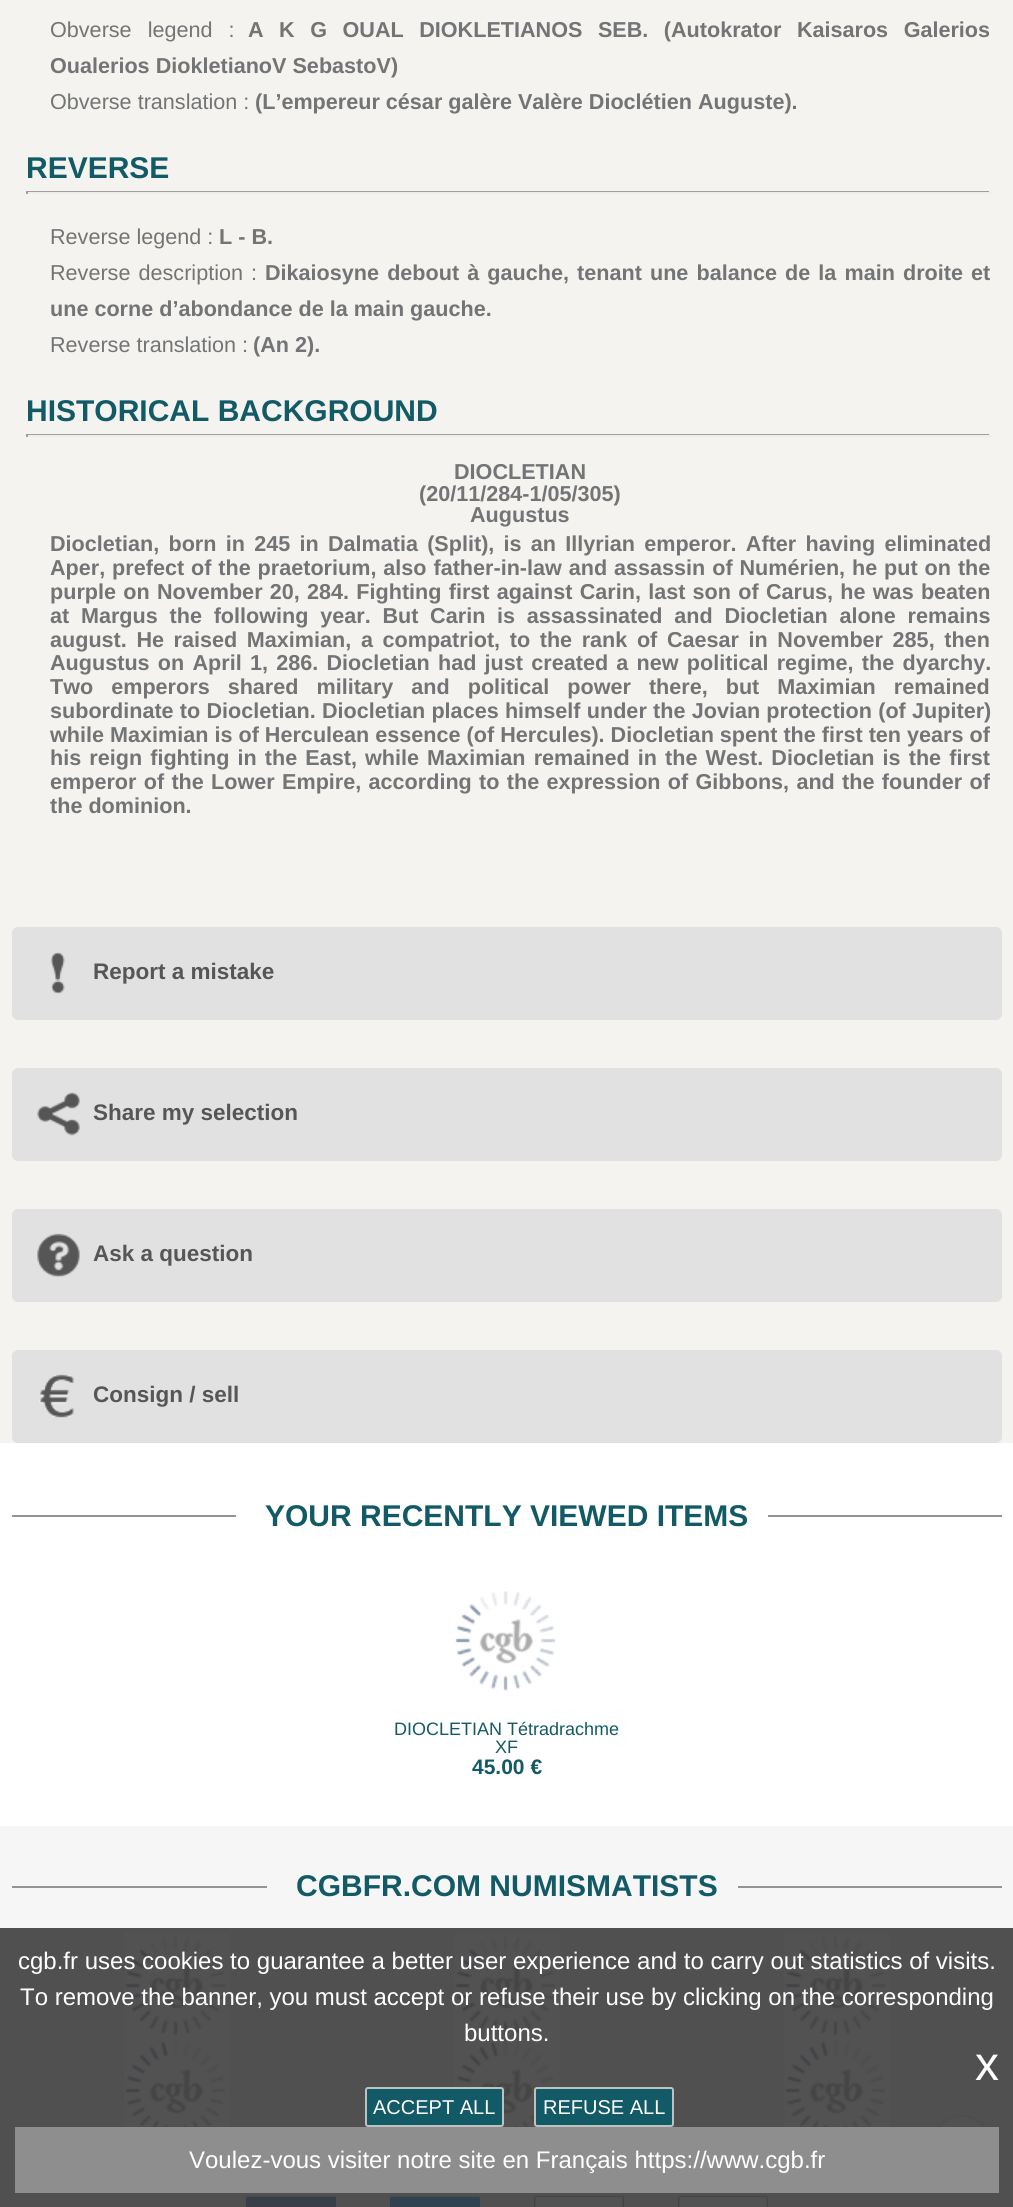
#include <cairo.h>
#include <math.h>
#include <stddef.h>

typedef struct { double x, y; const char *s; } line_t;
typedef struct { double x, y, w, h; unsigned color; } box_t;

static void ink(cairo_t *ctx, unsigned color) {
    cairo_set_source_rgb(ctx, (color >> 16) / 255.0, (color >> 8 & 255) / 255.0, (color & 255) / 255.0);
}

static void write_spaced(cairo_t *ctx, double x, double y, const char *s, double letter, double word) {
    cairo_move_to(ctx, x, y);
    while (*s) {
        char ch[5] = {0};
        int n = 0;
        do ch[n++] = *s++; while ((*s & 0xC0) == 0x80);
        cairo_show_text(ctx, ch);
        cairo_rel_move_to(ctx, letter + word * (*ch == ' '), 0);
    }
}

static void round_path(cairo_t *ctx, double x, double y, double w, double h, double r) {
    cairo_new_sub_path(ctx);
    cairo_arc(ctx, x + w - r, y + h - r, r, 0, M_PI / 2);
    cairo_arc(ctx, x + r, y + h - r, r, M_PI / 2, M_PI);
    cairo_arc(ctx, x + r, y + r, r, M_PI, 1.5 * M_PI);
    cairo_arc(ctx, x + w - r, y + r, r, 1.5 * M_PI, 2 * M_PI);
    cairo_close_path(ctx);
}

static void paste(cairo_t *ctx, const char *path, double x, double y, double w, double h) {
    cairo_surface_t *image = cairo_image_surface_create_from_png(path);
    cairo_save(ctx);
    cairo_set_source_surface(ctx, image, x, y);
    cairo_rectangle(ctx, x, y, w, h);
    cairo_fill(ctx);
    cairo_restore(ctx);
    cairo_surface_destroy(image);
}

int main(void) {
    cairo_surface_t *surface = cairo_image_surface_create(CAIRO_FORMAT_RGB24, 1013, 2207);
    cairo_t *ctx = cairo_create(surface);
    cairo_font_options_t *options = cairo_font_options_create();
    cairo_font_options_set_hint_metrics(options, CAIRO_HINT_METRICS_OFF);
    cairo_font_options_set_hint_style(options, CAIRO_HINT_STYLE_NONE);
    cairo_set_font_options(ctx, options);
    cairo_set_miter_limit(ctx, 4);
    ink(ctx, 0xF4F3EF);
    cairo_paint(ctx);
    cairo_select_font_face(ctx, "Liberation Sans", CAIRO_FONT_SLANT_NORMAL, CAIRO_FONT_WEIGHT_NORMAL);
    cairo_set_font_size(ctx, 21.6);
    ink(ctx, 0x737475);
    write_spaced(ctx, 50, 37, "Obverse legend :", 0, 10);
    cairo_select_font_face(ctx, "Liberation Sans", CAIRO_FONT_SLANT_NORMAL, CAIRO_FONT_WEIGHT_BOLD);
    write_spaced(ctx, 248, 37, "A K G OUAL DIOKLETIANOS SEB. (Autokrator Kaisaros Galerios", 0, 9.5);
    cairo_move_to(ctx, 50, 73);
    cairo_show_text(ctx, "Oualerios DiokletianoV SebastoV)");
    cairo_select_font_face(ctx, "Liberation Sans", CAIRO_FONT_SLANT_NORMAL, CAIRO_FONT_WEIGHT_NORMAL);
    cairo_move_to(ctx, 50, 109);
    cairo_show_text(ctx, "Obverse translation :");
    cairo_select_font_face(ctx, "Liberation Sans", CAIRO_FONT_SLANT_NORMAL, CAIRO_FONT_WEIGHT_BOLD);
    cairo_move_to(ctx, 255, 109);
    cairo_show_text(ctx, "(L’empereur césar galère Valère Dioclétien Auguste).");
    cairo_set_font_size(ctx, 30);
    ink(ctx, 0x125A66);
    cairo_move_to(ctx, 26, 178);
    cairo_show_text(ctx, "REVERSE");
    {
        static const box_t items[] = {
            {26, 191, 964, 1, 0x9F9F9F},
            {989, 191, 2, 3, 0xEEEEEE},
            {26, 192, 964, 2, 0xEEEEEE},
            {26, 191, 2, 3, 0x9F9F9F},
        };
        for (size_t i = 0; i < sizeof items / sizeof *items; i++) {
            ink(ctx, items[i].color);
            cairo_rectangle(ctx, items[i].x, items[i].y, items[i].w, items[i].h);
            cairo_fill(ctx);
        }
    }
    cairo_select_font_face(ctx, "Liberation Sans", CAIRO_FONT_SLANT_NORMAL, CAIRO_FONT_WEIGHT_NORMAL);
    cairo_set_font_size(ctx, 21.6);
    ink(ctx, 0x737475);
    cairo_move_to(ctx, 50, 244);
    cairo_show_text(ctx, "Reverse legend :");
    cairo_select_font_face(ctx, "Liberation Sans", CAIRO_FONT_SLANT_NORMAL, CAIRO_FONT_WEIGHT_BOLD);
    cairo_move_to(ctx, 219, 244);
    cairo_show_text(ctx, "L - B.");
    cairo_select_font_face(ctx, "Liberation Sans", CAIRO_FONT_SLANT_NORMAL, CAIRO_FONT_WEIGHT_NORMAL);
    write_spaced(ctx, 50, 280, "Reverse description :", 0, 2.1);
    cairo_select_font_face(ctx, "Liberation Sans", CAIRO_FONT_SLANT_NORMAL, CAIRO_FONT_WEIGHT_BOLD);
    write_spaced(ctx, 265, 280, "Dikaiosyne debout à gauche, tenant une balance de la main droite et", 0, 2.1);
    cairo_move_to(ctx, 50, 316);
    cairo_show_text(ctx, "une corne d’abondance de la main gauche.");
    cairo_select_font_face(ctx, "Liberation Sans", CAIRO_FONT_SLANT_NORMAL, CAIRO_FONT_WEIGHT_NORMAL);
    cairo_move_to(ctx, 50, 352);
    cairo_show_text(ctx, "Reverse translation :");
    cairo_select_font_face(ctx, "Liberation Sans", CAIRO_FONT_SLANT_NORMAL, CAIRO_FONT_WEIGHT_BOLD);
    cairo_move_to(ctx, 253, 352);
    cairo_show_text(ctx, "(An 2).");
    cairo_set_font_size(ctx, 30);
    ink(ctx, 0x125A66);
    cairo_move_to(ctx, 26, 421);
    cairo_show_text(ctx, "HISTORICAL BACKGROUND");
    {
        static const box_t items[] = {
            {26, 434, 964, 1, 0x9F9F9F},
            {989, 434, 2, 3, 0xEEEEEE},
            {26, 435, 964, 2, 0xEEEEEE},
            {26, 434, 2, 3, 0x9F9F9F},
        };
        for (size_t i = 0; i < sizeof items / sizeof *items; i++) {
            ink(ctx, items[i].color);
            cairo_rectangle(ctx, items[i].x, items[i].y, items[i].w, items[i].h);
            cairo_fill(ctx);
        }
    }
    cairo_set_font_size(ctx, 21.6);
    ink(ctx, 0x737475);
    {
        static const line_t items[] = {
            {454, 479, "DIOCLETIAN"},
            {419, 501, "(20/11/284-1/05/305)"},
            {470, 522, "Augustus"},
        };
        for (size_t i = 0; i < sizeof items / sizeof *items; i++) {
            cairo_move_to(ctx, items[i].x, items[i].y);
            cairo_show_text(ctx, items[i].s);
        }
    }
    write_spaced(ctx, 50, 551, "Diocletian, born in 245 in Dalmatia (Split), is an Illyrian emperor. After having eliminated", 0, 3.25);
    write_spaced(ctx, 50, 575, "Aper, prefect of the praetorium, also father-in-law and assassin of Numérien, he put on the", 0, 0.9);
    write_spaced(ctx, 50, 599, "purple on November 20, 284. Fighting first against Carin, last son of Carus, he was beaten", 0, 1.25);
    write_spaced(ctx, 50, 623, "at Margus the following year. But Carin is assassinated and Diocletian alone remains", 0, 5.75);
    write_spaced(ctx, 50, 647, "august. He raised Maximian, a compatriot, to the rank of Caesar in November 285, then", 0, 3.6);
    write_spaced(ctx, 50, 670, "Augustus on April 1, 286. Diocletian had just created a new political regime, the dyarchy.", 0, 2.25);
    write_spaced(ctx, 50, 694, "Two emperors shared military and political power there, but Maximian remained", 0, 12);
    write_spaced(ctx, 50, 718, "subordinate to Diocletian. Diocletian places himself under the Jovian protection (of Jupiter)", 0, 0.25);
    cairo_move_to(ctx, 50, 742);
    cairo_show_text(ctx, "while Maximian is of Herculean essence (of Hercules). Diocletian spent the first ten years of");
    write_spaced(ctx, 50, 765, "his reign fighting in the East, while Maximian remained in the West. Diocletian is the first", 0, 2.1);
    write_spaced(ctx, 50, 789, "emperor of the Lower Empire, according to the expression of Gibbons, and the founder of", 0, 1.3);
    cairo_move_to(ctx, 50, 813);
    cairo_show_text(ctx, "the dominion.");
    ink(ctx, 0xE1E1E1);
    round_path(ctx, 12, 927, 990, 93, 6);
    cairo_fill(ctx);
    paste(ctx, "media/1.png", 50, 952, 15, 42);
    cairo_set_font_size(ctx, 22.5);
    ink(ctx, 0x565656);
    cairo_move_to(ctx, 93, 979);
    cairo_show_text(ctx, "Report a mistake");
    ink(ctx, 0xE1E1E1);
    round_path(ctx, 12, 1068, 990, 93, 6);
    cairo_fill(ctx);
    paste(ctx, "media/2.png", 37, 1092, 43, 44);
    ink(ctx, 0x565656);
    cairo_move_to(ctx, 93, 1120);
    cairo_show_text(ctx, "Share my selection");
    ink(ctx, 0xE1E1E1);
    round_path(ctx, 12, 1209, 990, 93, 6);
    cairo_fill(ctx);
    paste(ctx, "media/3.png", 37, 1233, 43, 45);
    ink(ctx, 0x565656);
    cairo_move_to(ctx, 93, 1261);
    cairo_show_text(ctx, "Ask a question");
    ink(ctx, 0xE1E1E1);
    round_path(ctx, 12, 1350, 990, 93, 6);
    cairo_fill(ctx);
    paste(ctx, "media/4.png", 39, 1374, 35, 44);
    ink(ctx, 0x565656);
    cairo_move_to(ctx, 93, 1402);
    cairo_show_text(ctx, "Consign / sell");
    ink(ctx, 0xFFFFFF);
    cairo_rectangle(ctx, 0, 1443, 1013, 383);
    cairo_fill(ctx);
    ink(ctx, 0x949494);
    cairo_rectangle(ctx, 12, 1515, 224, 2);
    cairo_fill(ctx);
    cairo_set_font_size(ctx, 30);
    ink(ctx, 0x125A66);
    cairo_move_to(ctx, 265, 1526);
    cairo_show_text(ctx, "YOUR RECENTLY VIEWED ITEMS");
    ink(ctx, 0x949494);
    cairo_rectangle(ctx, 768, 1515, 234, 2);
    cairo_fill(ctx);
    paste(ctx, "media/5.png", 455, 1591, 101, 100);
    cairo_select_font_face(ctx, "Liberation Sans", CAIRO_FONT_SLANT_NORMAL, CAIRO_FONT_WEIGHT_NORMAL);
    cairo_set_font_size(ctx, 18);
    ink(ctx, 0x125A66);
    cairo_move_to(ctx, 394, 1735);
    cairo_show_text(ctx, "DIOCLETIAN Tétradrachme");
    cairo_move_to(ctx, 495, 1753);
    cairo_show_text(ctx, "XF");
    cairo_select_font_face(ctx, "Liberation Sans", CAIRO_FONT_SLANT_NORMAL, CAIRO_FONT_WEIGHT_BOLD);
    cairo_set_font_size(ctx, 21);
    cairo_move_to(ctx, 472, 1774);
    cairo_show_text(ctx, "45.00 €");
    {
        static const box_t items[] = {
            {0, 1826, 1013, 102, 0xF6F6F6},
            {0, 1928, 1013, 279, 0x505050},
            {12, 1886, 255, 2, 0x949494},
        };
        for (size_t i = 0; i < sizeof items / sizeof *items; i++) {
            ink(ctx, items[i].color);
            cairo_rectangle(ctx, items[i].x, items[i].y, items[i].w, items[i].h);
            cairo_fill(ctx);
        }
    }
    cairo_set_font_size(ctx, 30);
    ink(ctx, 0x125A66);
    cairo_move_to(ctx, 296, 1896);
    cairo_show_text(ctx, "CGBFR.COM NUMISMATISTS");
    ink(ctx, 0x949494);
    cairo_rectangle(ctx, 738, 1886, 264, 2);
    cairo_fill(ctx);
    paste(ctx, "media/6.png", 124, 1933, 106, 105);
    paste(ctx, "media/6.png", 454, 1933, 106, 105);
    paste(ctx, "media/6.png", 784, 1933, 106, 105);
    paste(ctx, "media/7.png", 124, 2038, 106, 89);
    paste(ctx, "media/7.png", 454, 2038, 106, 89);
    paste(ctx, "media/7.png", 784, 2038, 106, 89);
    cairo_select_font_face(ctx, "Liberation Sans", CAIRO_FONT_SLANT_NORMAL, CAIRO_FONT_WEIGHT_NORMAL);
    cairo_set_font_size(ctx, 24);
    ink(ctx, 0xFFFFFF);
    {
        static const line_t items[] = {
            {18, 1969, "cgb.fr uses cookies to guarantee a better user experience and to carry out statistics of visits."},
            {20, 2005, "To remove the banner, you must accept or refuse their use by clicking on the corresponding"},
            {464, 2041, "buttons."},
        };
        for (size_t i = 0; i < sizeof items / sizeof *items; i++) {
            cairo_move_to(ctx, items[i].x, items[i].y);
            cairo_show_text(ctx, items[i].s);
        }
    }
    cairo_set_font_size(ctx, 48);
    cairo_move_to(ctx, 975, 2080);
    cairo_show_text(ctx, "x");
    ink(ctx, 0x125A66);
    round_path(ctx, 366, 2088, 137, 38, 2);
    cairo_fill_preserve(ctx);
    ink(ctx, 0xC0C0C0);
    cairo_stroke(ctx);
    cairo_set_font_size(ctx, 20);
    ink(ctx, 0xFFFFFF);
    cairo_move_to(ctx, 373, 2114);
    cairo_show_text(ctx, "ACCEPT ALL");
    ink(ctx, 0x125A66);
    round_path(ctx, 535, 2088, 138, 38, 2);
    cairo_fill_preserve(ctx);
    ink(ctx, 0xC0C0C0);
    cairo_stroke(ctx);
    ink(ctx, 0xFFFFFF);
    cairo_move_to(ctx, 543, 2114);
    cairo_show_text(ctx, "REFUSE ALL");
    ink(ctx, 0x8E8E8E);
    cairo_rectangle(ctx, 15, 2127, 984, 66);
    cairo_fill(ctx);
    cairo_set_font_size(ctx, 24);
    ink(ctx, 0xFFFFFF);
    cairo_move_to(ctx, 189, 2168);
    cairo_show_text(ctx, "Voulez-vous visiter notre site en Français https://www.cgb.fr");
    paste(ctx, "media/8.png", 937, 2115, 49, 12);
    paste(ctx, "media/9.png", 246, 2195, 90, 12);
    paste(ctx, "media/10.png", 390, 2195, 90, 12);
    paste(ctx, "media/11.png", 534, 2195, 90, 12);
    paste(ctx, "media/12.png", 678, 2195, 90, 12);
    cairo_surface_write_to_png(surface, "image.png");
    cairo_font_options_destroy(options);
    cairo_destroy(ctx);
    cairo_surface_destroy(surface);
    return 0;
}
